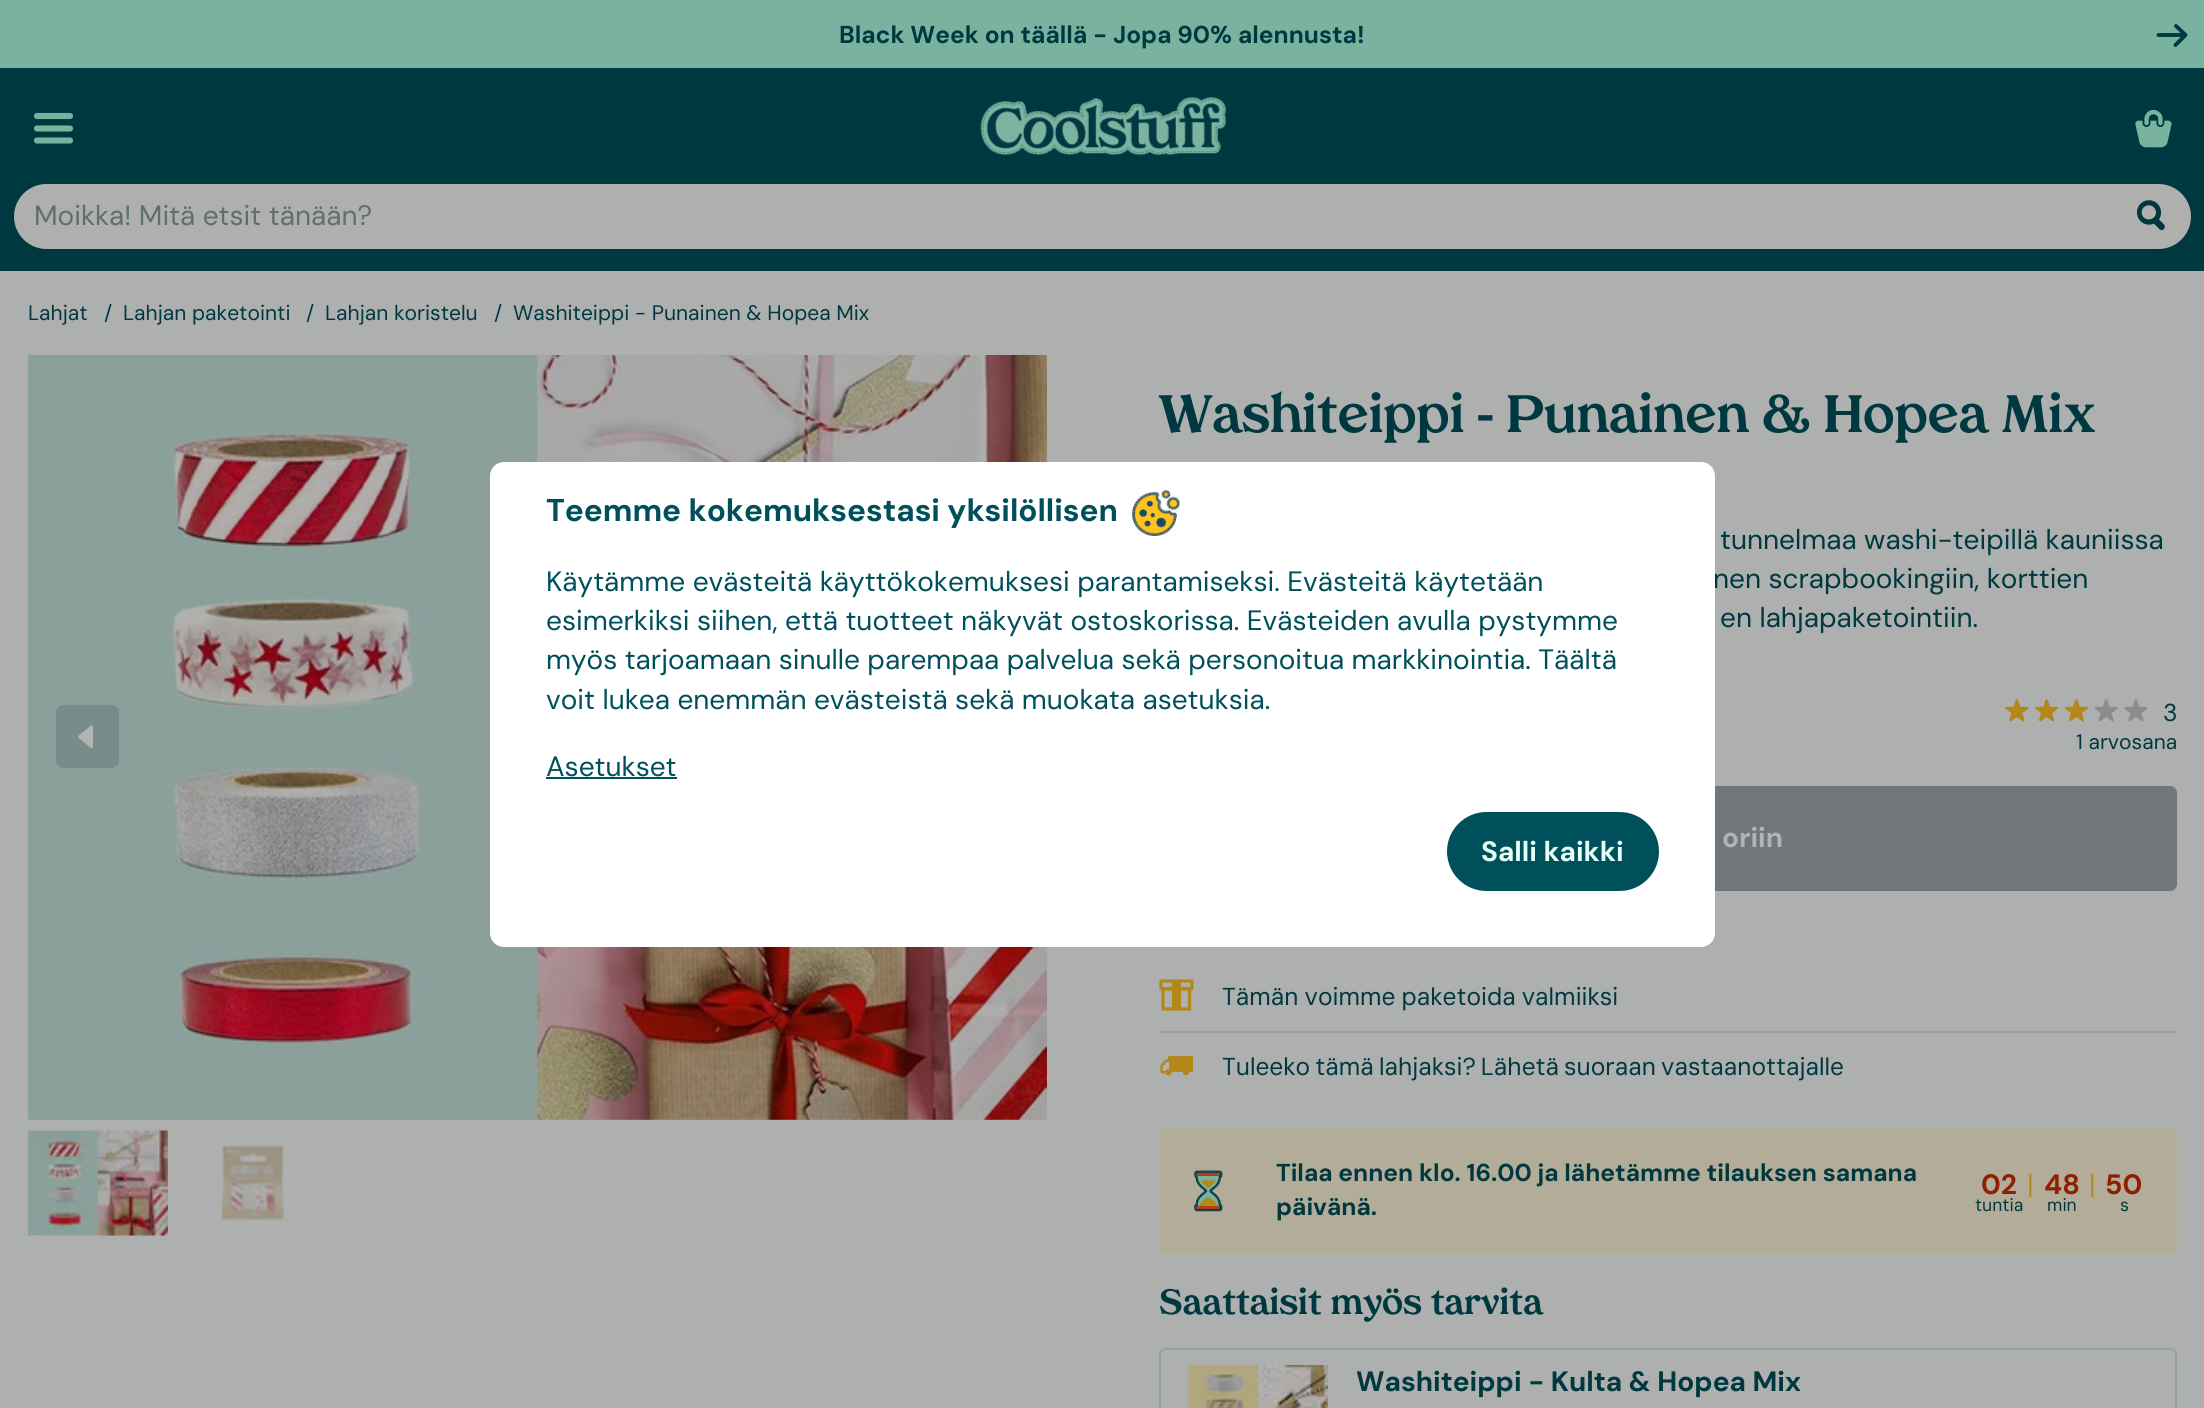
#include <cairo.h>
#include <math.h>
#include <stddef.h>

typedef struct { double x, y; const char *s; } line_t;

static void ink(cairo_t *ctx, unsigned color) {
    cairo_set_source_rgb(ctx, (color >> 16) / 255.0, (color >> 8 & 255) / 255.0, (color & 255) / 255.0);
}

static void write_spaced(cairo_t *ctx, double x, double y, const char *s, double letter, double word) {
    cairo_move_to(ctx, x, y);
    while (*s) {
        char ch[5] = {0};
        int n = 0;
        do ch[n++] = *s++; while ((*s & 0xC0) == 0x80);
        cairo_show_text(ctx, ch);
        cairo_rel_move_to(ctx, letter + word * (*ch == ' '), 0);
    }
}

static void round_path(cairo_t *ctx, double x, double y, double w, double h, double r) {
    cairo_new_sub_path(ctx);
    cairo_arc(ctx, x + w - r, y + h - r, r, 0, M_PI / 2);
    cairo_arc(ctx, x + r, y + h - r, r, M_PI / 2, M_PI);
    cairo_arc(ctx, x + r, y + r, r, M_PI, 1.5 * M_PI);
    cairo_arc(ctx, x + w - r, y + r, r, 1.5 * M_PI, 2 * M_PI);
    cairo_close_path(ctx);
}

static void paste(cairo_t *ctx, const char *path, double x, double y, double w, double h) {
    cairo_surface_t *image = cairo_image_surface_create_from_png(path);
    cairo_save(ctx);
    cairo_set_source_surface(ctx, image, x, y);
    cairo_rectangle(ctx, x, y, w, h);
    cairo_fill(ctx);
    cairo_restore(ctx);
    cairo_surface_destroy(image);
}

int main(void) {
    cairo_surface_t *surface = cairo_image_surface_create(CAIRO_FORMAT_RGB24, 2204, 1408);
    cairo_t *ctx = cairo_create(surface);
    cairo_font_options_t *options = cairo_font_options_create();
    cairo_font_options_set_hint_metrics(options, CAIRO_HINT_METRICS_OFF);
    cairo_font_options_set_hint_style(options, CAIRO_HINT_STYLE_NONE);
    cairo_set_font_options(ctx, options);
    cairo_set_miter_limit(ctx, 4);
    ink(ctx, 0xAEB0AF);
    cairo_paint(ctx);
    ink(ctx, 0x79B3A0);
    cairo_rectangle(ctx, 0, 0, 2204, 68);
    cairo_fill(ctx);
    cairo_select_font_face(ctx, "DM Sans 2", CAIRO_FONT_SLANT_NORMAL, CAIRO_FONT_WEIGHT_BOLD);
    cairo_set_font_size(ctx, 24.5);
    ink(ctx, 0x003840);
    cairo_move_to(ctx, 839, 43);
    cairo_show_text(ctx, "Black Week on täällä - Jopa 90% alennusta!");
    cairo_new_path(ctx);
    cairo_move_to(ctx, 2175.5, 45);
    cairo_line_to(ctx, 2185.5, 35);
    cairo_line_to(ctx, 2176, 26);
    cairo_move_to(ctx, 2158.5, 35);
    cairo_line_to(ctx, 2182, 35);
    cairo_set_line_width(ctx, 3.9);
    cairo_set_line_cap(ctx, CAIRO_LINE_CAP_ROUND);
    cairo_set_line_join(ctx, CAIRO_LINE_JOIN_ROUND);
    cairo_stroke(ctx);
    cairo_rectangle(ctx, 0, 68, 2204, 203);
    cairo_fill(ctx);
    cairo_new_path(ctx);
    cairo_move_to(ctx, 37, 116);
    cairo_line_to(ctx, 70, 116);
    cairo_move_to(ctx, 37, 128.5);
    cairo_line_to(ctx, 70, 128.5);
    cairo_move_to(ctx, 37, 140.5);
    cairo_line_to(ctx, 70, 140.5);
    ink(ctx, 0x79B3A0);
    cairo_set_line_width(ctx, 6.1);
    cairo_set_line_join(ctx, CAIRO_LINE_JOIN_MITER);
    cairo_stroke(ctx);
    paste(ctx, "media/1.png", 980, 97, 246, 59);
    paste(ctx, "media/2.png", 2135, 109, 37, 39);
    ink(ctx, 0xAFAFAE);
    round_path(ctx, 14, 184, 2177, 65, 32.5);
    cairo_fill(ctx);
    cairo_select_font_face(ctx, "DM Sans", CAIRO_FONT_SLANT_NORMAL, CAIRO_FONT_WEIGHT_NORMAL);
    cairo_set_font_size(ctx, 28);
    ink(ctx, 0x5F6E71);
    cairo_move_to(ctx, 34, 225);
    cairo_show_text(ctx, "Moikka! Mitä etsit tänään?");
    paste(ctx, "media/3.png", 2136, 200, 29, 31);
    cairo_select_font_face(ctx, "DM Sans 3", CAIRO_FONT_SLANT_NORMAL, CAIRO_FONT_WEIGHT_NORMAL);
    cairo_set_font_size(ctx, 21);
    ink(ctx, 0x003840);
    {
        static const line_t items[] = {
            {28, 320, "Lahjat"},
            {104, 320, "/"},
            {123, 320, "Lahjan paketointi"},
            {306, 320, "/"},
            {325, 320, "Lahjan koristelu"},
            {494, 320, "/"},
            {513, 320, "Washiteippi - Punainen & Hopea Mix"},
        };
        for (size_t i = 0; i < sizeof items / sizeof *items; i++) {
            cairo_move_to(ctx, items[i].x, items[i].y);
            cairo_show_text(ctx, items[i].s);
        }
    }
    paste(ctx, "media/4.png", 28, 355, 1019, 765);
    ink(ctx, 0x788C89);
    round_path(ctx, 56, 705, 63, 63, 7);
    cairo_fill(ctx);
    paste(ctx, "media/5.png", 78, 725, 15, 24);
    paste(ctx, "media/6.png", 28, 1130, 140, 106);
    paste(ctx, "media/7.png", 219, 1144, 75, 84);
    cairo_select_font_face(ctx, "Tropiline", CAIRO_FONT_SLANT_NORMAL, CAIRO_FONT_WEIGHT_BOLD);
    cairo_set_font_size(ctx, 52.5);
    ink(ctx, 0x003840);
    cairo_move_to(ctx, 1159, 432);
    cairo_show_text(ctx, "Washiteippi - Punainen & Hopea Mix");
    cairo_select_font_face(ctx, "DM Sans", CAIRO_FONT_SLANT_NORMAL, CAIRO_FONT_WEIGHT_NORMAL);
    cairo_set_font_size(ctx, 28);
    {
        static const line_t items[] = {
            {1720, 549, "tunnelmaa washi-teipillä kauniissa"},
            {1713, 588, "nen scrapbookingiin, korttien"},
            {1720, 627, "en lahjapaketointiin."},
        };
        for (size_t i = 0; i < sizeof items / sizeof *items; i++) {
            cairo_move_to(ctx, items[i].x, items[i].y);
            cairo_show_text(ctx, items[i].s);
        }
    }
    paste(ctx, "media/8.png", 2005, 699, 24, 23);
    paste(ctx, "media/9.png", 2035, 699, 24, 23);
    paste(ctx, "media/10.png", 2064, 699, 24, 23);
    paste(ctx, "media/11.png", 2094, 699, 24, 23);
    paste(ctx, "media/12.png", 2124, 699, 24, 23);
    cairo_select_font_face(ctx, "DM Sans 2", CAIRO_FONT_SLANT_NORMAL, CAIRO_FONT_WEIGHT_NORMAL);
    cairo_set_font_size(ctx, 24.5);
    cairo_move_to(ctx, 2163, 721);
    cairo_show_text(ctx, "3");
    cairo_select_font_face(ctx, "DM Sans 3", CAIRO_FONT_SLANT_NORMAL, CAIRO_FONT_WEIGHT_NORMAL);
    cairo_set_font_size(ctx, 21);
    cairo_move_to(ctx, 2076, 749);
    cairo_show_text(ctx, "1 arvosana");
    ink(ctx, 0x71767A);
    round_path(ctx, 1159, 786, 1018, 105, 7);
    cairo_fill(ctx);
    cairo_select_font_face(ctx, "DM Sans", CAIRO_FONT_SLANT_NORMAL, CAIRO_FONT_WEIGHT_BOLD);
    cairo_set_font_size(ctx, 28);
    ink(ctx, 0xB3B3B3);
    cairo_move_to(ctx, 1722, 847);
    cairo_show_text(ctx, "oriin");
    ink(ctx, 0x9A9DA0);
    cairo_rectangle(ctx, 1159, 1031, 1018, 2);
    cairo_fill(ctx);
    cairo_save(ctx);
    cairo_new_path(ctx);
    cairo_move_to(ctx, 1159, 979);
    cairo_line_to(ctx, 1193.5, 979);
    cairo_line_to(ctx, 1193.5, 1010.5);
    cairo_line_to(ctx, 1159, 1010.5);
    cairo_close_path(ctx);
    cairo_clip(ctx);
    cairo_new_path(ctx);
    cairo_move_to(ctx, 1189.5, 989);
    cairo_line_to(ctx, 1163, 989);
    cairo_line_to(ctx, 1163, 1009);
    cairo_line_to(ctx, 1189.5, 1009);
    cairo_close_path(ctx);
    cairo_move_to(ctx, 1192, 981);
    cairo_line_to(ctx, 1161, 981);
    cairo_line_to(ctx, 1161, 988.5);
    cairo_line_to(ctx, 1192, 988.5);
    cairo_close_path(ctx);
    ink(ctx, 0xB38819);
    cairo_set_line_width(ctx, 3.2);
    cairo_set_line_cap(ctx, CAIRO_LINE_CAP_BUTT);
    cairo_stroke(ctx);
    cairo_restore(ctx);
    ink(ctx, 0xB38819);
    cairo_rectangle(ctx, 1172, 982, 9, 26);
    cairo_fill(ctx);
    cairo_select_font_face(ctx, "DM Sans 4", CAIRO_FONT_SLANT_NORMAL, CAIRO_FONT_WEIGHT_NORMAL);
    cairo_set_font_size(ctx, 24.5);
    ink(ctx, 0x003840);
    write_spaced(ctx, 1222, 1005, "Tämän voimme paketoida valmiiksi", 0, -0.5);
    paste(ctx, "media/13.png", 1160, 1056, 33, 20);
    write_spaced(ctx, 1222, 1075, "Tuleeko tämä lahjaksi? Lähetä suoraan vastaanottajalle", 0, -1.5);
    ink(ctx, 0xB3AC99);
    cairo_rectangle(ctx, 1159, 1129, 1018, 124);
    cairo_fill(ctx);
    paste(ctx, "media/14.png", 1194, 1170, 29, 42);
    cairo_select_font_face(ctx, "DM Sans 2", CAIRO_FONT_SLANT_NORMAL, CAIRO_FONT_WEIGHT_BOLD);
    ink(ctx, 0x003840);
    cairo_move_to(ctx, 1276, 1181);
    cairo_show_text(ctx, "Tilaa ennen klo. 16.00 ja lähetämme tilauksen samana");
    cairo_move_to(ctx, 1276, 1215);
    cairo_show_text(ctx, "päivänä.");
    cairo_select_font_face(ctx, "DM Sans", CAIRO_FONT_SLANT_NORMAL, CAIRO_FONT_WEIGHT_BOLD);
    cairo_set_font_size(ctx, 28);
    ink(ctx, 0x8F1F00);
    cairo_move_to(ctx, 1981, 1194);
    cairo_show_text(ctx, "02");
    cairo_select_font_face(ctx, "DM Sans Light", CAIRO_FONT_SLANT_NORMAL, CAIRO_FONT_WEIGHT_NORMAL);
    ink(ctx, 0xB38719);
    cairo_move_to(ctx, 2027, 1194);
    cairo_show_text(ctx, "|");
    cairo_select_font_face(ctx, "DM Sans", CAIRO_FONT_SLANT_NORMAL, CAIRO_FONT_WEIGHT_BOLD);
    ink(ctx, 0x8F1F00);
    cairo_move_to(ctx, 2044, 1194);
    cairo_show_text(ctx, "48");
    cairo_select_font_face(ctx, "DM Sans Light", CAIRO_FONT_SLANT_NORMAL, CAIRO_FONT_WEIGHT_NORMAL);
    ink(ctx, 0xB38719);
    cairo_move_to(ctx, 2089, 1194);
    cairo_show_text(ctx, "|");
    cairo_select_font_face(ctx, "DM Sans", CAIRO_FONT_SLANT_NORMAL, CAIRO_FONT_WEIGHT_BOLD);
    ink(ctx, 0x8F1F00);
    cairo_move_to(ctx, 2105, 1194);
    cairo_show_text(ctx, "50");
    cairo_select_font_face(ctx, "DM Sans 4", CAIRO_FONT_SLANT_NORMAL, CAIRO_FONT_WEIGHT_NORMAL);
    cairo_set_font_size(ctx, 17.5);
    ink(ctx, 0x003840);
    {
        static const line_t items[] = {
            {1975, 1211, "tuntia"},
            {2047, 1211, "min"},
            {2120, 1211, "s"},
        };
        for (size_t i = 0; i < sizeof items / sizeof *items; i++) {
            cairo_move_to(ctx, items[i].x, items[i].y);
            cairo_show_text(ctx, items[i].s);
        }
    }
    cairo_select_font_face(ctx, "Tropiline", CAIRO_FONT_SLANT_NORMAL, CAIRO_FONT_WEIGHT_BOLD);
    cairo_set_font_size(ctx, 35);
    cairo_move_to(ctx, 1159, 1314);
    cairo_show_text(ctx, "Saattaisit myös tarvita");
    round_path(ctx, 1160, 1349, 1016, 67, 6);
    ink(ctx, 0x97A09D);
    cairo_set_line_width(ctx, 2);
    cairo_set_line_cap(ctx, CAIRO_LINE_CAP_BUTT);
    cairo_stroke(ctx);
    paste(ctx, "media/15.png", 1188, 1365, 141, 43);
    cairo_select_font_face(ctx, "DM Sans", CAIRO_FONT_SLANT_NORMAL, CAIRO_FONT_WEIGHT_BOLD);
    cairo_set_font_size(ctx, 28);
    ink(ctx, 0x003840);
    cairo_move_to(ctx, 1356, 1391);
    cairo_show_text(ctx, "Washiteippi - Kulta & Hopea Mix");
    ink(ctx, 0xFFFFFF);
    round_path(ctx, 490, 462, 1225, 485, 14);
    cairo_fill(ctx);
    cairo_select_font_face(ctx, "DM Sans 3", CAIRO_FONT_SLANT_NORMAL, CAIRO_FONT_WEIGHT_BOLD);
    cairo_set_font_size(ctx, 31.5);
    ink(ctx, 0x00505C);
    cairo_move_to(ctx, 546, 521);
    cairo_show_text(ctx, "Teemme kokemuksestasi yksilöllisen");
    paste(ctx, "media/16.png", 1132, 490, 48, 46);
    cairo_select_font_face(ctx, "DM Sans", CAIRO_FONT_SLANT_NORMAL, CAIRO_FONT_WEIGHT_NORMAL);
    cairo_set_font_size(ctx, 28);
    {
        static const line_t items[] = {
            {546, 591, "Käytämme evästeitä käyttökokemuksesi parantamiseksi. Evästeitä käytetään"},
            {546, 630, "esimerkiksi siihen, että tuotteet näkyvät ostoskorissa. Evästeiden avulla pystymme"},
            {546, 669, "myös tarjoamaan sinulle parempaa palvelua sekä personoitua markkinointia. Täältä"},
            {546, 709, "voit lukea enemmän evästeistä sekä muokata asetuksia."},
            {546, 776, "Asetukset"},
        };
        for (size_t i = 0; i < sizeof items / sizeof *items; i++) {
            cairo_move_to(ctx, items[i].x, items[i].y);
            cairo_show_text(ctx, items[i].s);
        }
    }
    cairo_rectangle(ctx, 546, 777, 131, 2);
    cairo_fill(ctx);
    round_path(ctx, 1447, 812, 212, 79, 39.5);
    cairo_fill(ctx);
    cairo_select_font_face(ctx, "DM Sans", CAIRO_FONT_SLANT_NORMAL, CAIRO_FONT_WEIGHT_BOLD);
    ink(ctx, 0xE6FFF7);
    cairo_move_to(ctx, 1481, 861);
    cairo_show_text(ctx, "Salli kaikki");
    cairo_surface_write_to_png(surface, "image.png");
    cairo_font_options_destroy(options);
    cairo_destroy(ctx);
    cairo_surface_destroy(surface);
    return 0;
}
